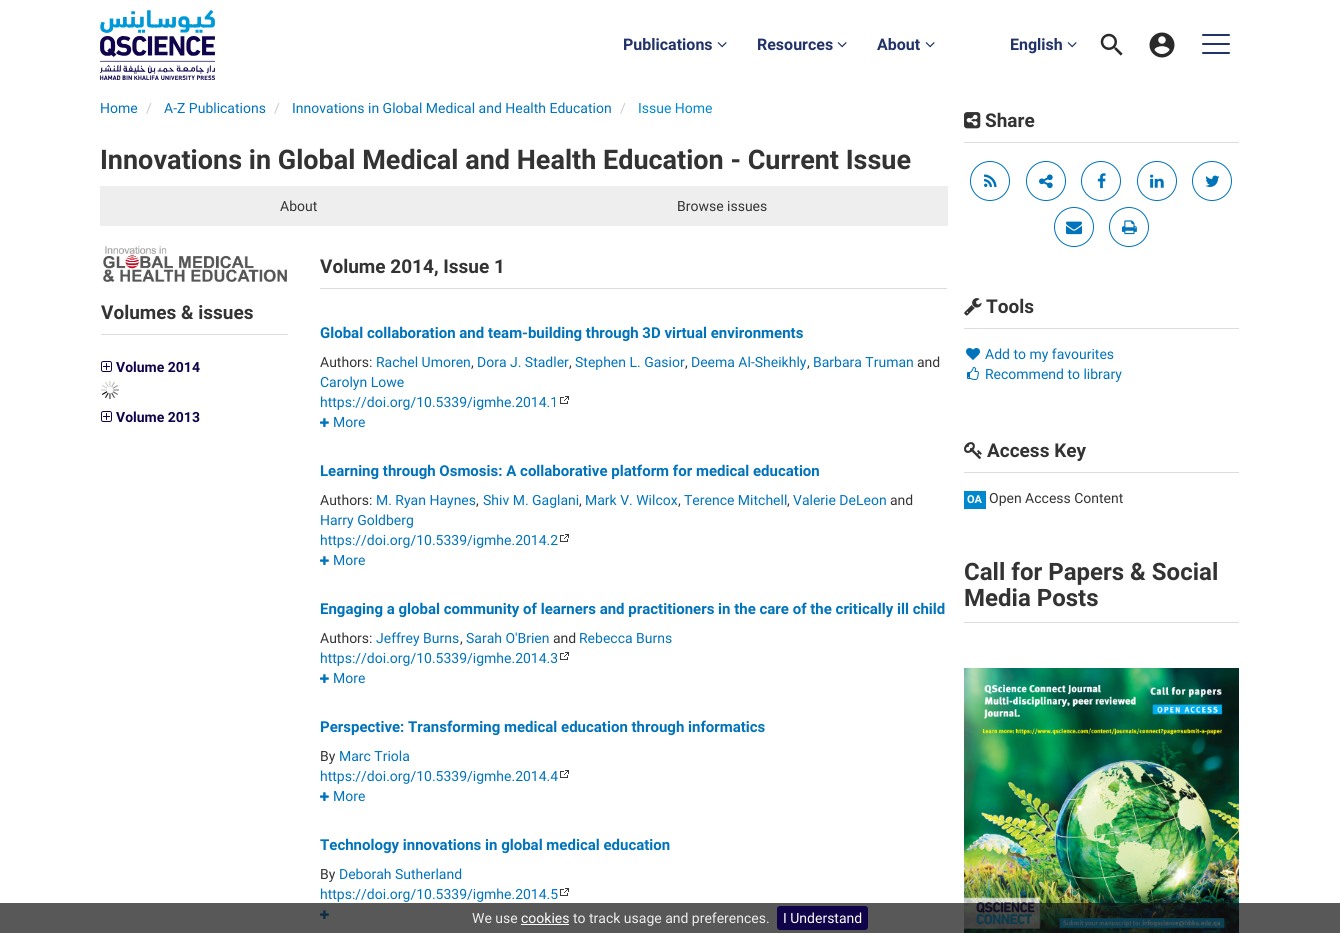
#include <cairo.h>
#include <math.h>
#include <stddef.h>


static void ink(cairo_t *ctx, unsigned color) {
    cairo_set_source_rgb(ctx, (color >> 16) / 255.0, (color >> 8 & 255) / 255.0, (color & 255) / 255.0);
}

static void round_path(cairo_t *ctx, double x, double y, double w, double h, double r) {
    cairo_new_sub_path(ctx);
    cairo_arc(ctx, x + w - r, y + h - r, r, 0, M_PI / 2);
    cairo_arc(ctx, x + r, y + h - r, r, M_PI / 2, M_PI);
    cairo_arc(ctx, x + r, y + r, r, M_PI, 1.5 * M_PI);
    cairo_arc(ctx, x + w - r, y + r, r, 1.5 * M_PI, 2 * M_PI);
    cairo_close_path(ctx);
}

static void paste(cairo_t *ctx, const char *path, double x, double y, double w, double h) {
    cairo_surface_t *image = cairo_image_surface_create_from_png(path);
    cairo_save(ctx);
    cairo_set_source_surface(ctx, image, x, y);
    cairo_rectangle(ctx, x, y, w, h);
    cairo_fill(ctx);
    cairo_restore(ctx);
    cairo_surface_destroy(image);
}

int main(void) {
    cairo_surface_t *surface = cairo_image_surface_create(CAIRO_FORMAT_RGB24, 1340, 933);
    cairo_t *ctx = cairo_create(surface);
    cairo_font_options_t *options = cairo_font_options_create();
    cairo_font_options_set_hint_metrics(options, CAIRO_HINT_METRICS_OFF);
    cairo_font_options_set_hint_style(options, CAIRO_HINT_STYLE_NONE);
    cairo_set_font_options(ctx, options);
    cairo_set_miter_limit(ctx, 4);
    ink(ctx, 0xFFFFFF);
    cairo_paint(ctx);
    paste(ctx, "media/1.png", 100, 10, 115, 70);
    cairo_select_font_face(ctx, "Roboto", CAIRO_FONT_SLANT_NORMAL, CAIRO_FONT_WEIGHT_BOLD);
    cairo_set_font_size(ctx, 16);
    ink(ctx, 0x213368);
    cairo_move_to(ctx, 623, 50);
    cairo_show_text(ctx, "Publications");
    paste(ctx, "media/2.png", 717, 42, 10, 6);
    cairo_move_to(ctx, 757, 50);
    cairo_show_text(ctx, "Resources");
    paste(ctx, "media/2.png", 837, 42, 10, 6);
    cairo_move_to(ctx, 877, 50);
    cairo_show_text(ctx, "About");
    paste(ctx, "media/2.png", 925, 42, 10, 6);
    cairo_move_to(ctx, 1010, 50);
    cairo_show_text(ctx, "English");
    paste(ctx, "media/2.png", 1067, 42, 10, 6);
    paste(ctx, "media/3.png", 1100, 33, 23, 23);
    paste(ctx, "media/4.png", 1149, 32, 26, 26);
    round_path(ctx, 1202, 34, 28, 2, 1);
    cairo_fill(ctx);
    round_path(ctx, 1202, 43, 28, 2, 1);
    cairo_fill(ctx);
    round_path(ctx, 1202, 52, 28, 2, 1);
    cairo_fill(ctx);
    cairo_select_font_face(ctx, "Roboto", CAIRO_FONT_SLANT_NORMAL, CAIRO_FONT_WEIGHT_NORMAL);
    cairo_set_font_size(ctx, 14);
    ink(ctx, 0x0073BB);
    cairo_move_to(ctx, 100, 113);
    cairo_show_text(ctx, "Home");
    ink(ctx, 0xCCCCCC);
    cairo_move_to(ctx, 146, 113);
    cairo_show_text(ctx, "/");
    ink(ctx, 0x0073BB);
    cairo_move_to(ctx, 164, 113);
    cairo_show_text(ctx, "A-Z Publications");
    ink(ctx, 0xCCCCCC);
    cairo_move_to(ctx, 274, 113);
    cairo_show_text(ctx, "/");
    ink(ctx, 0x0073BB);
    cairo_move_to(ctx, 292, 113);
    cairo_show_text(ctx, "Innovations in Global Medical and Health Education");
    ink(ctx, 0xCCCCCC);
    cairo_move_to(ctx, 620, 113);
    cairo_show_text(ctx, "/");
    ink(ctx, 0x0088CE);
    cairo_move_to(ctx, 638, 113);
    cairo_show_text(ctx, "Issue Home");
    cairo_select_font_face(ctx, "Roboto", CAIRO_FONT_SLANT_NORMAL, CAIRO_FONT_WEIGHT_BOLD);
    cairo_set_font_size(ctx, 27);
    ink(ctx, 0x333333);
    cairo_move_to(ctx, 100, 169);
    cairo_show_text(ctx, "Innovations in Global Medical and Health Education - Current Issue");
    ink(ctx, 0xEEEEEE);
    cairo_rectangle(ctx, 100, 186, 848, 40);
    cairo_fill(ctx);
    cairo_select_font_face(ctx, "Roboto", CAIRO_FONT_SLANT_NORMAL, CAIRO_FONT_WEIGHT_NORMAL);
    cairo_set_font_size(ctx, 14);
    ink(ctx, 0x333333);
    cairo_move_to(ctx, 280, 211);
    cairo_show_text(ctx, "About");
    cairo_move_to(ctx, 677, 211);
    cairo_show_text(ctx, "Browse issues");
    paste(ctx, "media/5.png", 103, 246, 184, 36);
    ink(ctx, 0xDDDDDD);
    cairo_rectangle(ctx, 320, 288, 627, 1);
    cairo_fill(ctx);
    cairo_select_font_face(ctx, "Roboto", CAIRO_FONT_SLANT_NORMAL, CAIRO_FONT_WEIGHT_BOLD);
    cairo_set_font_size(ctx, 19);
    ink(ctx, 0x333333);
    cairo_move_to(ctx, 320, 273);
    cairo_show_text(ctx, "Volume 2014, Issue 1");
    cairo_set_font_size(ctx, 15);
    ink(ctx, 0x0073BB);
    cairo_move_to(ctx, 320, 338);
    cairo_show_text(ctx, "Global collaboration and team-building through 3D virtual environments");
    cairo_select_font_face(ctx, "Roboto", CAIRO_FONT_SLANT_NORMAL, CAIRO_FONT_WEIGHT_NORMAL);
    cairo_set_font_size(ctx, 14);
    ink(ctx, 0x333333);
    cairo_move_to(ctx, 320, 367);
    cairo_show_text(ctx, "Authors:");
    ink(ctx, 0x0073BB);
    cairo_move_to(ctx, 376, 367);
    cairo_show_text(ctx, "Rachel Umoren");
    ink(ctx, 0x333333);
    cairo_move_to(ctx, 471, 367);
    cairo_show_text(ctx, ",");
    ink(ctx, 0x0073BB);
    cairo_move_to(ctx, 477, 367);
    cairo_show_text(ctx, "Dora J. Stadler");
    ink(ctx, 0x333333);
    cairo_move_to(ctx, 569, 367);
    cairo_show_text(ctx, ",");
    ink(ctx, 0x0073BB);
    cairo_move_to(ctx, 575, 367);
    cairo_show_text(ctx, "Stephen L. Gasior");
    ink(ctx, 0x333333);
    cairo_move_to(ctx, 685, 367);
    cairo_show_text(ctx, ",");
    ink(ctx, 0x0073BB);
    cairo_move_to(ctx, 691, 367);
    cairo_show_text(ctx, "Deema Al-Sheikhly");
    ink(ctx, 0x333333);
    cairo_move_to(ctx, 807, 367);
    cairo_show_text(ctx, ",");
    ink(ctx, 0x0073BB);
    cairo_move_to(ctx, 813, 367);
    cairo_show_text(ctx, "Barbara Truman");
    ink(ctx, 0x333333);
    cairo_move_to(ctx, 917, 367);
    cairo_show_text(ctx, "and");
    ink(ctx, 0x0073BB);
    cairo_move_to(ctx, 320, 387);
    cairo_show_text(ctx, "Carolyn Lowe");
    paste(ctx, "media/6.png", 560, 396, 9, 8);
    cairo_move_to(ctx, 320, 407);
    cairo_show_text(ctx, "https://doi.org/10.5339/igmhe.2014.1");
    paste(ctx, "media/7.png", 320, 418, 9, 9);
    cairo_move_to(ctx, 333, 427);
    cairo_show_text(ctx, "More");
    cairo_select_font_face(ctx, "Roboto", CAIRO_FONT_SLANT_NORMAL, CAIRO_FONT_WEIGHT_BOLD);
    cairo_set_font_size(ctx, 15);
    cairo_move_to(ctx, 320, 476);
    cairo_show_text(ctx, "Learning through Osmosis: A collaborative platform for medical education");
    cairo_select_font_face(ctx, "Roboto", CAIRO_FONT_SLANT_NORMAL, CAIRO_FONT_WEIGHT_NORMAL);
    cairo_set_font_size(ctx, 14);
    ink(ctx, 0x333333);
    cairo_move_to(ctx, 320, 505);
    cairo_show_text(ctx, "Authors:");
    ink(ctx, 0x0073BB);
    cairo_move_to(ctx, 376, 505);
    cairo_show_text(ctx, "M. Ryan Haynes");
    ink(ctx, 0x333333);
    cairo_move_to(ctx, 476, 505);
    cairo_show_text(ctx, ",");
    ink(ctx, 0x0073BB);
    cairo_move_to(ctx, 483, 505);
    cairo_show_text(ctx, "Shiv M. Gaglani");
    ink(ctx, 0x333333);
    cairo_move_to(ctx, 579, 505);
    cairo_show_text(ctx, ",");
    ink(ctx, 0x0073BB);
    cairo_move_to(ctx, 585, 505);
    cairo_show_text(ctx, "Mark V. Wilcox");
    ink(ctx, 0x333333);
    cairo_move_to(ctx, 678, 505);
    cairo_show_text(ctx, ",");
    ink(ctx, 0x0073BB);
    cairo_move_to(ctx, 684, 505);
    cairo_show_text(ctx, "Terence Mitchell");
    ink(ctx, 0x333333);
    cairo_move_to(ctx, 787, 505);
    cairo_show_text(ctx, ",");
    ink(ctx, 0x0073BB);
    cairo_move_to(ctx, 793, 505);
    cairo_show_text(ctx, "Valerie DeLeon");
    ink(ctx, 0x333333);
    cairo_move_to(ctx, 890, 505);
    cairo_show_text(ctx, "and");
    ink(ctx, 0x0073BB);
    cairo_move_to(ctx, 320, 525);
    cairo_show_text(ctx, "Harry Goldberg");
    paste(ctx, "media/6.png", 560, 534, 9, 8);
    cairo_move_to(ctx, 320, 545);
    cairo_show_text(ctx, "https://doi.org/10.5339/igmhe.2014.2");
    paste(ctx, "media/7.png", 320, 556, 9, 9);
    cairo_move_to(ctx, 333, 565);
    cairo_show_text(ctx, "More");
    cairo_select_font_face(ctx, "Roboto", CAIRO_FONT_SLANT_NORMAL, CAIRO_FONT_WEIGHT_BOLD);
    cairo_set_font_size(ctx, 15);
    cairo_move_to(ctx, 320, 614);
    cairo_show_text(ctx, "Engaging a global community of learners and practitioners in the care of the critically ill child");
    cairo_select_font_face(ctx, "Roboto", CAIRO_FONT_SLANT_NORMAL, CAIRO_FONT_WEIGHT_NORMAL);
    cairo_set_font_size(ctx, 14);
    ink(ctx, 0x333333);
    cairo_move_to(ctx, 320, 643);
    cairo_show_text(ctx, "Authors:");
    ink(ctx, 0x0073BB);
    cairo_move_to(ctx, 376, 643);
    cairo_show_text(ctx, "Jeffrey Burns");
    ink(ctx, 0x333333);
    cairo_move_to(ctx, 460, 643);
    cairo_show_text(ctx, ",");
    ink(ctx, 0x0073BB);
    cairo_move_to(ctx, 466, 643);
    cairo_show_text(ctx, "Sarah O'Brien");
    ink(ctx, 0x333333);
    cairo_move_to(ctx, 553, 643);
    cairo_show_text(ctx, "and");
    ink(ctx, 0x0073BB);
    cairo_move_to(ctx, 579, 643);
    cairo_show_text(ctx, "Rebecca Burns");
    paste(ctx, "media/6.png", 560, 652, 9, 8);
    cairo_move_to(ctx, 320, 663);
    cairo_show_text(ctx, "https://doi.org/10.5339/igmhe.2014.3");
    paste(ctx, "media/7.png", 320, 674, 9, 9);
    cairo_move_to(ctx, 333, 683);
    cairo_show_text(ctx, "More");
    cairo_select_font_face(ctx, "Roboto", CAIRO_FONT_SLANT_NORMAL, CAIRO_FONT_WEIGHT_BOLD);
    cairo_set_font_size(ctx, 15);
    cairo_move_to(ctx, 320, 732);
    cairo_show_text(ctx, "Perspective: Transforming medical education through informatics");
    cairo_select_font_face(ctx, "Roboto", CAIRO_FONT_SLANT_NORMAL, CAIRO_FONT_WEIGHT_NORMAL);
    cairo_set_font_size(ctx, 14);
    ink(ctx, 0x333333);
    cairo_move_to(ctx, 320, 761);
    cairo_show_text(ctx, "By");
    ink(ctx, 0x0073BB);
    cairo_move_to(ctx, 339, 761);
    cairo_show_text(ctx, "Marc Triola");
    paste(ctx, "media/6.png", 560, 770, 9, 8);
    cairo_move_to(ctx, 320, 781);
    cairo_show_text(ctx, "https://doi.org/10.5339/igmhe.2014.4");
    paste(ctx, "media/7.png", 320, 792, 9, 9);
    cairo_move_to(ctx, 333, 801);
    cairo_show_text(ctx, "More");
    cairo_select_font_face(ctx, "Roboto", CAIRO_FONT_SLANT_NORMAL, CAIRO_FONT_WEIGHT_BOLD);
    cairo_set_font_size(ctx, 15);
    cairo_move_to(ctx, 320, 850);
    cairo_show_text(ctx, "Technology innovations in global medical education");
    cairo_select_font_face(ctx, "Roboto", CAIRO_FONT_SLANT_NORMAL, CAIRO_FONT_WEIGHT_NORMAL);
    cairo_set_font_size(ctx, 14);
    ink(ctx, 0x333333);
    cairo_move_to(ctx, 320, 879);
    cairo_show_text(ctx, "By");
    ink(ctx, 0x0073BB);
    cairo_move_to(ctx, 339, 879);
    cairo_show_text(ctx, "Deborah Sutherland");
    paste(ctx, "media/6.png", 560, 888, 9, 8);
    cairo_move_to(ctx, 320, 899);
    cairo_show_text(ctx, "https://doi.org/10.5339/igmhe.2014.5");
    paste(ctx, "media/7.png", 320, 910, 9, 9);
    ink(ctx, 0xDDDDDD);
    cairo_rectangle(ctx, 101, 334, 187, 1);
    cairo_fill(ctx);
    cairo_select_font_face(ctx, "Roboto", CAIRO_FONT_SLANT_NORMAL, CAIRO_FONT_WEIGHT_BOLD);
    cairo_set_font_size(ctx, 19);
    ink(ctx, 0x333333);
    cairo_move_to(ctx, 101, 319);
    cairo_show_text(ctx, "Volumes & issues");
    paste(ctx, "media/8.png", 101, 361, 11, 11);
    cairo_set_font_size(ctx, 14);
    ink(ctx, 0x110349);
    cairo_move_to(ctx, 116, 372);
    cairo_show_text(ctx, "Volume 2014");
    paste(ctx, "media/9.png", 101, 381, 18, 18);
    paste(ctx, "media/8.png", 101, 411, 11, 11);
    cairo_move_to(ctx, 116, 422);
    cairo_show_text(ctx, "Volume 2013");
    ink(ctx, 0xDDDDDD);
    cairo_rectangle(ctx, 964, 142, 275, 1);
    cairo_fill(ctx);
    paste(ctx, "media/10.png", 964, 112, 17, 17);
    cairo_set_font_size(ctx, 19);
    ink(ctx, 0x333333);
    cairo_move_to(ctx, 985, 127);
    cairo_show_text(ctx, "Share");
    cairo_new_path(ctx);
    cairo_arc(ctx, 990, 181, 19.5, 0, 2 * M_PI);
    ink(ctx, 0x0073BB);
    cairo_set_line_width(ctx, 1);
    cairo_stroke(ctx);
    paste(ctx, "media/11.png", 984, 174, 13, 13);
    cairo_arc(ctx, 1046, 181, 19.5, 0, 2 * M_PI);
    cairo_stroke(ctx);
    paste(ctx, "media/12.png", 1039, 174, 14, 15);
    cairo_arc(ctx, 1101, 181, 19.5, 0, 2 * M_PI);
    cairo_stroke(ctx);
    paste(ctx, "media/13.png", 1097, 173, 9, 16);
    cairo_arc(ctx, 1157, 181, 19.5, 0, 2 * M_PI);
    cairo_stroke(ctx);
    paste(ctx, "media/14.png", 1150, 174, 14, 14);
    cairo_arc(ctx, 1212, 181, 19.5, 0, 2 * M_PI);
    cairo_stroke(ctx);
    paste(ctx, "media/15.png", 1205, 175, 15, 12);
    cairo_arc(ctx, 1074, 227, 19.5, 0, 2 * M_PI);
    cairo_stroke(ctx);
    paste(ctx, "media/16.png", 1066, 221, 16, 14);
    cairo_arc(ctx, 1129, 227, 19.5, 0, 2 * M_PI);
    cairo_stroke(ctx);
    paste(ctx, "media/17.png", 1122, 220, 15, 15);
    ink(ctx, 0xDDDDDD);
    cairo_rectangle(ctx, 964, 328, 275, 1);
    cairo_fill(ctx);
    paste(ctx, "media/18.png", 964, 298, 18, 18);
    ink(ctx, 0x333333);
    cairo_move_to(ctx, 986, 313);
    cairo_show_text(ctx, "Tools");
    paste(ctx, "media/19.png", 966, 348, 14, 12);
    cairo_select_font_face(ctx, "Roboto", CAIRO_FONT_SLANT_NORMAL, CAIRO_FONT_WEIGHT_NORMAL);
    cairo_set_font_size(ctx, 14);
    ink(ctx, 0x0073BB);
    cairo_move_to(ctx, 985, 359);
    cairo_show_text(ctx, "Add to my favourites");
    paste(ctx, "media/20.png", 967, 367, 12, 13);
    cairo_move_to(ctx, 985, 379);
    cairo_show_text(ctx, "Recommend to library");
    ink(ctx, 0xDDDDDD);
    cairo_rectangle(ctx, 964, 472, 275, 1);
    cairo_fill(ctx);
    paste(ctx, "media/21.png", 964, 442, 18, 17);
    cairo_select_font_face(ctx, "Roboto", CAIRO_FONT_SLANT_NORMAL, CAIRO_FONT_WEIGHT_BOLD);
    cairo_set_font_size(ctx, 19);
    ink(ctx, 0x333333);
    cairo_move_to(ctx, 987, 457);
    cairo_show_text(ctx, "Access Key");
    ink(ctx, 0x0088CE);
    cairo_rectangle(ctx, 964, 491, 22, 18);
    cairo_fill(ctx);
    cairo_set_font_size(ctx, 11);
    ink(ctx, 0xFFFFFF);
    cairo_move_to(ctx, 967, 503);
    cairo_show_text(ctx, "OA");
    cairo_select_font_face(ctx, "Roboto", CAIRO_FONT_SLANT_NORMAL, CAIRO_FONT_WEIGHT_NORMAL);
    cairo_set_font_size(ctx, 14);
    ink(ctx, 0x333333);
    cairo_move_to(ctx, 989, 503);
    cairo_show_text(ctx, "Open Access Content");
    ink(ctx, 0xDDDDDD);
    cairo_rectangle(ctx, 964, 622, 275, 1);
    cairo_fill(ctx);
    cairo_select_font_face(ctx, "Roboto", CAIRO_FONT_SLANT_NORMAL, CAIRO_FONT_WEIGHT_BOLD);
    cairo_set_font_size(ctx, 24);
    ink(ctx, 0x333333);
    cairo_move_to(ctx, 964, 580);
    cairo_show_text(ctx, "Call for Papers & Social");
    cairo_move_to(ctx, 964, 606);
    cairo_show_text(ctx, "Media Posts");
    paste(ctx, "media/22.png", 964, 668, 275, 265);
    cairo_set_source_rgba(ctx, 0.067, 0.067, 0.067, 0.7);
    cairo_rectangle(ctx, 0, 903, 1340, 30);
    cairo_fill(ctx);
    cairo_select_font_face(ctx, "Roboto", CAIRO_FONT_SLANT_NORMAL, CAIRO_FONT_WEIGHT_NORMAL);
    cairo_set_font_size(ctx, 14);
    ink(ctx, 0xEEEEEE);
    cairo_move_to(ctx, 472, 923);
    cairo_show_text(ctx, "We use");
    ink(ctx, 0xFFFFFF);
    cairo_move_to(ctx, 521, 923);
    cairo_show_text(ctx, "cookies");
    cairo_rectangle(ctx, 521, 924, 48, 1);
    cairo_fill(ctx);
    ink(ctx, 0xEEEEEE);
    cairo_move_to(ctx, 573, 923);
    cairo_show_text(ctx, "to track usage and preferences.");
    ink(ctx, 0x110349);
    round_path(ctx, 777, 906, 91, 24, 3);
    cairo_fill(ctx);
    ink(ctx, 0xFFFFFF);
    cairo_move_to(ctx, 783, 923);
    cairo_show_text(ctx, "I Understand");
    cairo_surface_write_to_png(surface, "image.png");
    cairo_font_options_destroy(options);
    cairo_destroy(ctx);
    cairo_surface_destroy(surface);
    return 0;
}
